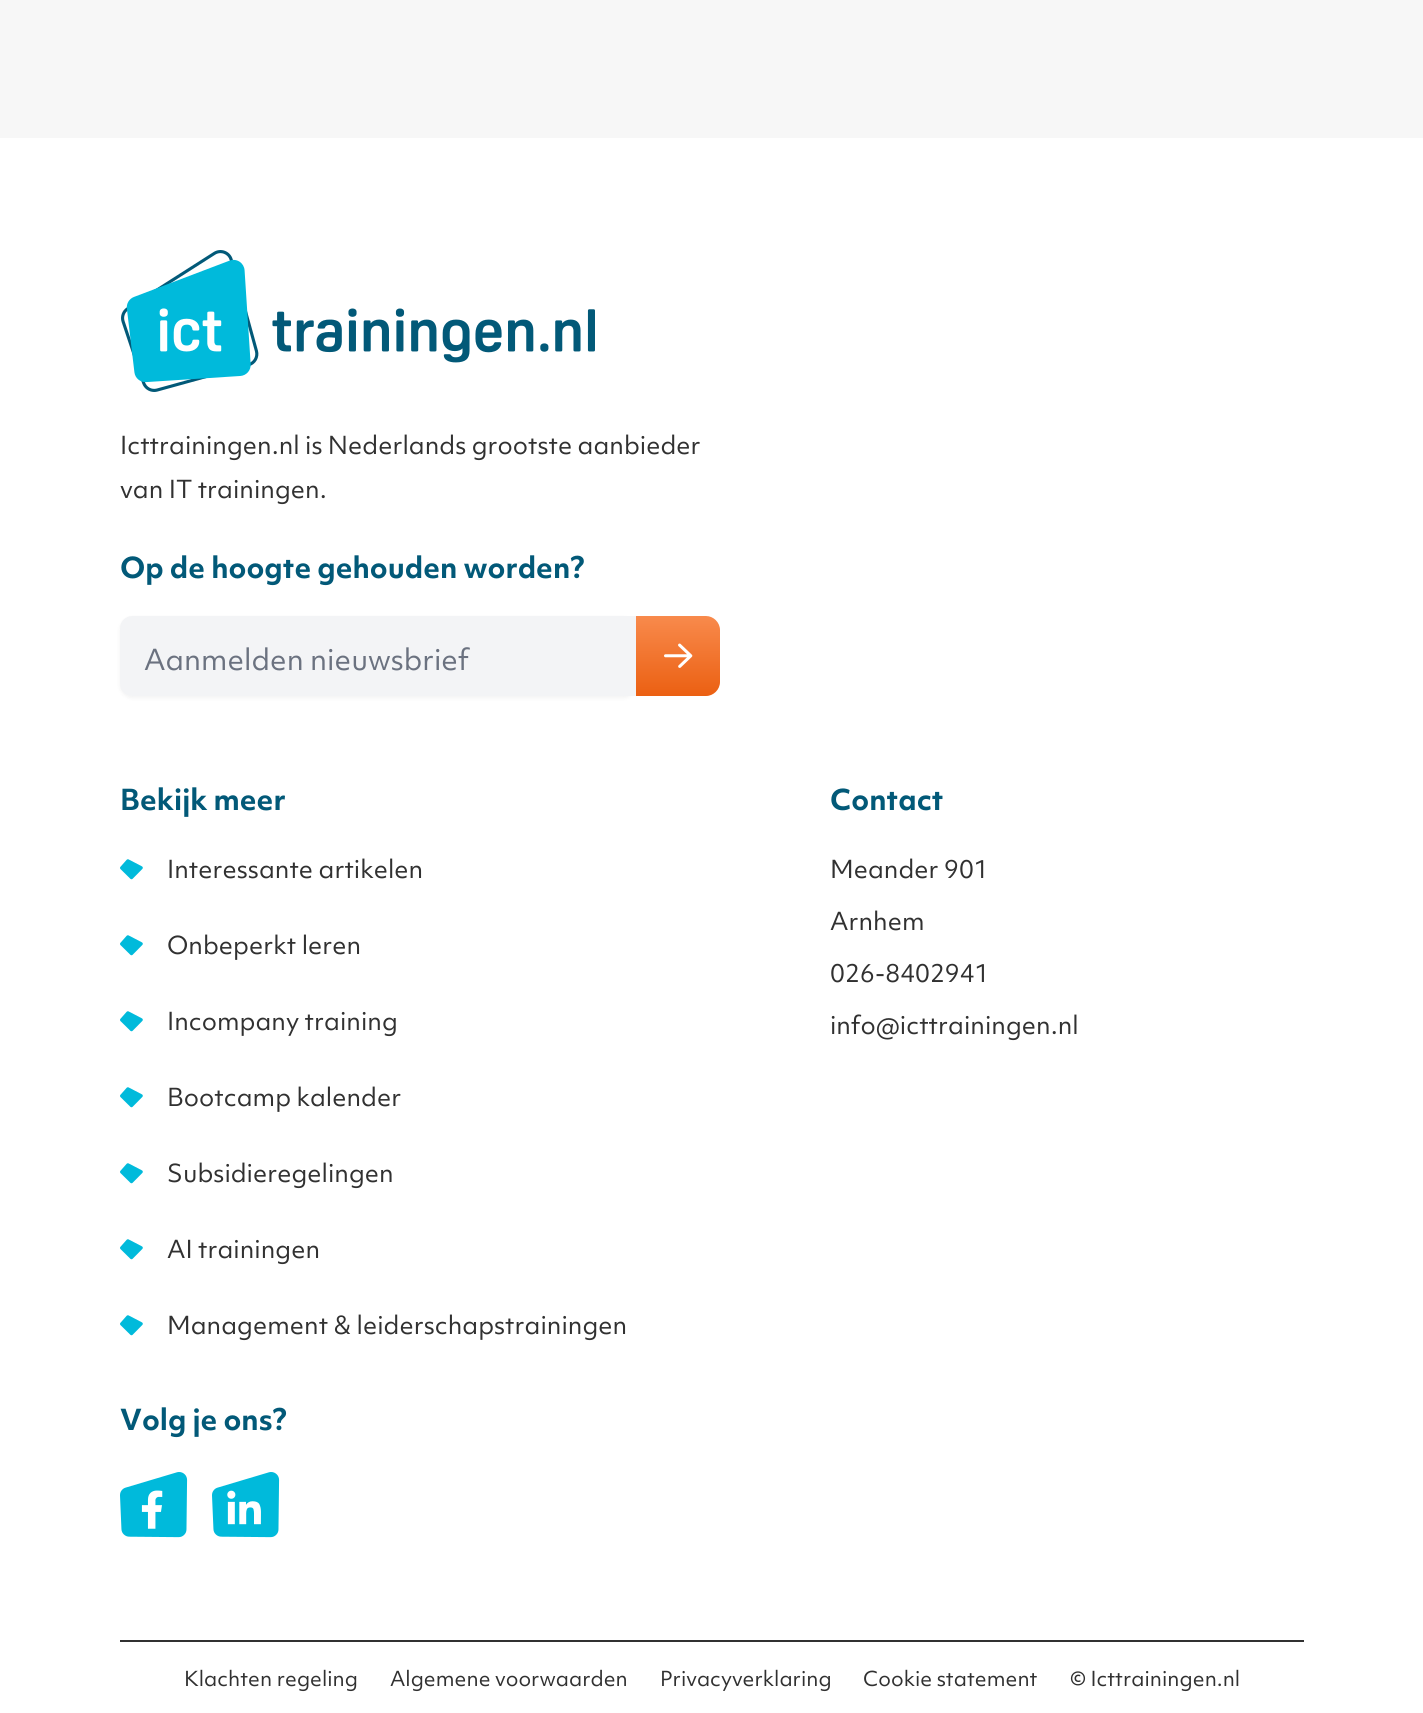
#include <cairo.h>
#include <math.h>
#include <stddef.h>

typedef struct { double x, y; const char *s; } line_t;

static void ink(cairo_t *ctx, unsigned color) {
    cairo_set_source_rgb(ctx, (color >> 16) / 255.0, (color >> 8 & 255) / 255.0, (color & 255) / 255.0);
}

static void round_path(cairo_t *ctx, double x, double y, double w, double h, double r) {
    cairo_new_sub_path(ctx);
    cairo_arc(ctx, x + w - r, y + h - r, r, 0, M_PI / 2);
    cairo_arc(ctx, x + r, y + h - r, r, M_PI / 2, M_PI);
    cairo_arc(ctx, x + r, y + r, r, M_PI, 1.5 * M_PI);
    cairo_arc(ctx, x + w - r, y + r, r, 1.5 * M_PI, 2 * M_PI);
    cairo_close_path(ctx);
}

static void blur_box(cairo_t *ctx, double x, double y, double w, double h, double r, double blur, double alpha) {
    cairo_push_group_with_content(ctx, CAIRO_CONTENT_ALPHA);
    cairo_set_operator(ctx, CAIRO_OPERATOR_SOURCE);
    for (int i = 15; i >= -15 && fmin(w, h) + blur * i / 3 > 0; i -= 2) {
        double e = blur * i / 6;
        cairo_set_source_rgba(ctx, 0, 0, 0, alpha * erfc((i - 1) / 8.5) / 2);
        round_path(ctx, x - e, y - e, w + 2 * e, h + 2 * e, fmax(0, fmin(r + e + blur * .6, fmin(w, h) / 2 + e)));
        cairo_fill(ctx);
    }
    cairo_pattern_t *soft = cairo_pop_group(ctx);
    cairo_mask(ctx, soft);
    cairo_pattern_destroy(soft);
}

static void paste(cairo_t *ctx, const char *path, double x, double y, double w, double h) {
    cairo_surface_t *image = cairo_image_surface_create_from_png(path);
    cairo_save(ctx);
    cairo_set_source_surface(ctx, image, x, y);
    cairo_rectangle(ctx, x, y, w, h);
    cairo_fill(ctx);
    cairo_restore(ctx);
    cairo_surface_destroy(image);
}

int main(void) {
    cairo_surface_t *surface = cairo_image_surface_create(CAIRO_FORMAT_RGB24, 1423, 1713);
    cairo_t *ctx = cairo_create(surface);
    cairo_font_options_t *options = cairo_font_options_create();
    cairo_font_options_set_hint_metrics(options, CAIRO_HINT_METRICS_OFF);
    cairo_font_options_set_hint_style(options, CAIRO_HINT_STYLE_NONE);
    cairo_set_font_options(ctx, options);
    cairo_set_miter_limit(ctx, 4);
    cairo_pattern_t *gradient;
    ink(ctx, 0xF7F7F7);
    cairo_paint(ctx);
    ink(ctx, 0xFFFFFF);
    cairo_rectangle(ctx, 0, 138, 1423, 1575);
    cairo_fill(ctx);
    paste(ctx, "media/1.png", 121, 250, 474, 142);
    cairo_select_font_face(ctx, "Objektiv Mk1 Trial", CAIRO_FONT_SLANT_NORMAL, CAIRO_FONT_WEIGHT_NORMAL);
    cairo_set_font_size(ctx, 24);
    ink(ctx, 0x313131);
    cairo_move_to(ctx, 120, 454);
    cairo_show_text(ctx, "Icttrainingen.nl is Nederlands grootste aanbieder");
    cairo_move_to(ctx, 120, 498);
    cairo_show_text(ctx, "van IT trainingen.");
    cairo_select_font_face(ctx, "Objektiv Mk1 Trial", CAIRO_FONT_SLANT_NORMAL, CAIRO_FONT_WEIGHT_BOLD);
    cairo_set_font_size(ctx, 28);
    ink(ctx, 0x025978);
    cairo_move_to(ctx, 120, 578);
    cairo_show_text(ctx, "Op de hoogte gehouden worden?");
    ink(ctx, 0x000000);
    blur_box(ctx, 120, 618, 516, 80, 12, 2, 0.05);
    ink(ctx, 0xF3F4F6);
    cairo_new_path(ctx);
    cairo_move_to(ctx, 132, 616);
    cairo_line_to(ctx, 636, 616);
    cairo_line_to(ctx, 636, 696);
    cairo_line_to(ctx, 132, 696);
    cairo_curve_to(ctx, 125.5, 696, 120, 690.5, 120, 684);
    cairo_line_to(ctx, 120, 628);
    cairo_curve_to(ctx, 120, 621.5, 125.5, 616, 132, 616);
    cairo_close_path(ctx);
    cairo_fill(ctx);
    cairo_select_font_face(ctx, "Objektiv Mk1 Trial", CAIRO_FONT_SLANT_NORMAL, CAIRO_FONT_WEIGHT_NORMAL);
    ink(ctx, 0x6B7280);
    cairo_move_to(ctx, 144, 670);
    cairo_show_text(ctx, "Aanmelden nieuwsbrief");
    gradient = cairo_pattern_create_linear(678, 696, 678, 616);
    cairo_pattern_add_color_stop_rgba(gradient, 0, 0.922, 0.376, 0.071, 1);
    cairo_pattern_add_color_stop_rgba(gradient, 1, 0.973, 0.541, 0.298, 1);
    cairo_set_source(ctx, gradient);
    cairo_pattern_destroy(gradient);
    cairo_new_path(ctx);
    cairo_move_to(ctx, 636, 616);
    cairo_line_to(ctx, 706, 616);
    cairo_curve_to(ctx, 713.5, 616, 720, 622.5, 720, 630);
    cairo_line_to(ctx, 720, 682);
    cairo_curve_to(ctx, 720, 689.5, 713.5, 696, 706, 696);
    cairo_line_to(ctx, 636, 696);
    cairo_close_path(ctx);
    cairo_fill(ctx);
    paste(ctx, "media/2.png", 664, 643, 29, 25);
    cairo_select_font_face(ctx, "Objektiv Mk1 Trial", CAIRO_FONT_SLANT_NORMAL, CAIRO_FONT_WEIGHT_BOLD);
    ink(ctx, 0x025978);
    cairo_move_to(ctx, 120, 810);
    cairo_show_text(ctx, "Bekijk meer");
    paste(ctx, "media/3.png", 120, 859, 23, 21);
    cairo_select_font_face(ctx, "Objektiv Mk1 Trial", CAIRO_FONT_SLANT_NORMAL, CAIRO_FONT_WEIGHT_NORMAL);
    cairo_set_font_size(ctx, 24);
    ink(ctx, 0x313131);
    cairo_move_to(ctx, 167, 878);
    cairo_show_text(ctx, "Interessante artikelen");
    paste(ctx, "media/3.png", 120, 935, 23, 21);
    cairo_move_to(ctx, 167, 954);
    cairo_show_text(ctx, "Onbeperkt leren");
    paste(ctx, "media/3.png", 120, 1011, 23, 21);
    cairo_move_to(ctx, 167, 1030);
    cairo_show_text(ctx, "Incompany training");
    paste(ctx, "media/3.png", 120, 1087, 23, 21);
    cairo_move_to(ctx, 167, 1106);
    cairo_show_text(ctx, "Bootcamp kalender");
    paste(ctx, "media/3.png", 120, 1163, 23, 21);
    cairo_move_to(ctx, 167, 1182);
    cairo_show_text(ctx, "Subsidieregelingen");
    paste(ctx, "media/3.png", 120, 1239, 23, 21);
    cairo_move_to(ctx, 167, 1258);
    cairo_show_text(ctx, "AI trainingen");
    paste(ctx, "media/3.png", 120, 1315, 23, 21);
    cairo_move_to(ctx, 167, 1334);
    cairo_show_text(ctx, "Management & leiderschapstrainingen");
    cairo_select_font_face(ctx, "Objektiv Mk1 Trial", CAIRO_FONT_SLANT_NORMAL, CAIRO_FONT_WEIGHT_BOLD);
    cairo_set_font_size(ctx, 28);
    ink(ctx, 0x025978);
    cairo_move_to(ctx, 830, 810);
    cairo_show_text(ctx, "Contact");
    cairo_select_font_face(ctx, "Objektiv Mk1 Trial", CAIRO_FONT_SLANT_NORMAL, CAIRO_FONT_WEIGHT_NORMAL);
    cairo_set_font_size(ctx, 24);
    ink(ctx, 0x313131);
    {
        static const line_t items[] = {
            {830, 878, "Meander 901"},
            {830, 930, "Arnhem"},
            {830, 982, "026-8402941"},
            {830, 1034, "info@icttrainingen.nl"},
        };
        for (size_t i = 0; i < sizeof items / sizeof *items; i++) {
            cairo_move_to(ctx, items[i].x, items[i].y);
            cairo_show_text(ctx, items[i].s);
        }
    }
    cairo_select_font_face(ctx, "Objektiv Mk1 Trial", CAIRO_FONT_SLANT_NORMAL, CAIRO_FONT_WEIGHT_BOLD);
    cairo_set_font_size(ctx, 28);
    ink(ctx, 0x025978);
    cairo_move_to(ctx, 120, 1430);
    cairo_show_text(ctx, "Volg je ons?");
    paste(ctx, "media/4.png", 120, 1472, 68, 66);
    paste(ctx, "media/5.png", 212, 1472, 68, 66);
    ink(ctx, 0x313131);
    cairo_rectangle(ctx, 120, 1640, 1184, 2);
    cairo_fill(ctx);
    cairo_select_font_face(ctx, "Objektiv Mk1 Trial", CAIRO_FONT_SLANT_NORMAL, CAIRO_FONT_WEIGHT_NORMAL);
    cairo_set_font_size(ctx, 20);
    {
        static const line_t items[] = {
            {184, 1686, "Klachten regeling"},
            {390, 1686, "Algemene voorwaarden"},
            {660, 1686, "Privacyverklaring"},
            {863, 1686, "Cookie statement"},
            {1070, 1686, "© Icttrainingen.nl"},
        };
        for (size_t i = 0; i < sizeof items / sizeof *items; i++) {
            cairo_move_to(ctx, items[i].x, items[i].y);
            cairo_show_text(ctx, items[i].s);
        }
    }
    cairo_surface_write_to_png(surface, "image.png");
    cairo_font_options_destroy(options);
    cairo_destroy(ctx);
    cairo_surface_destroy(surface);
    return 0;
}
